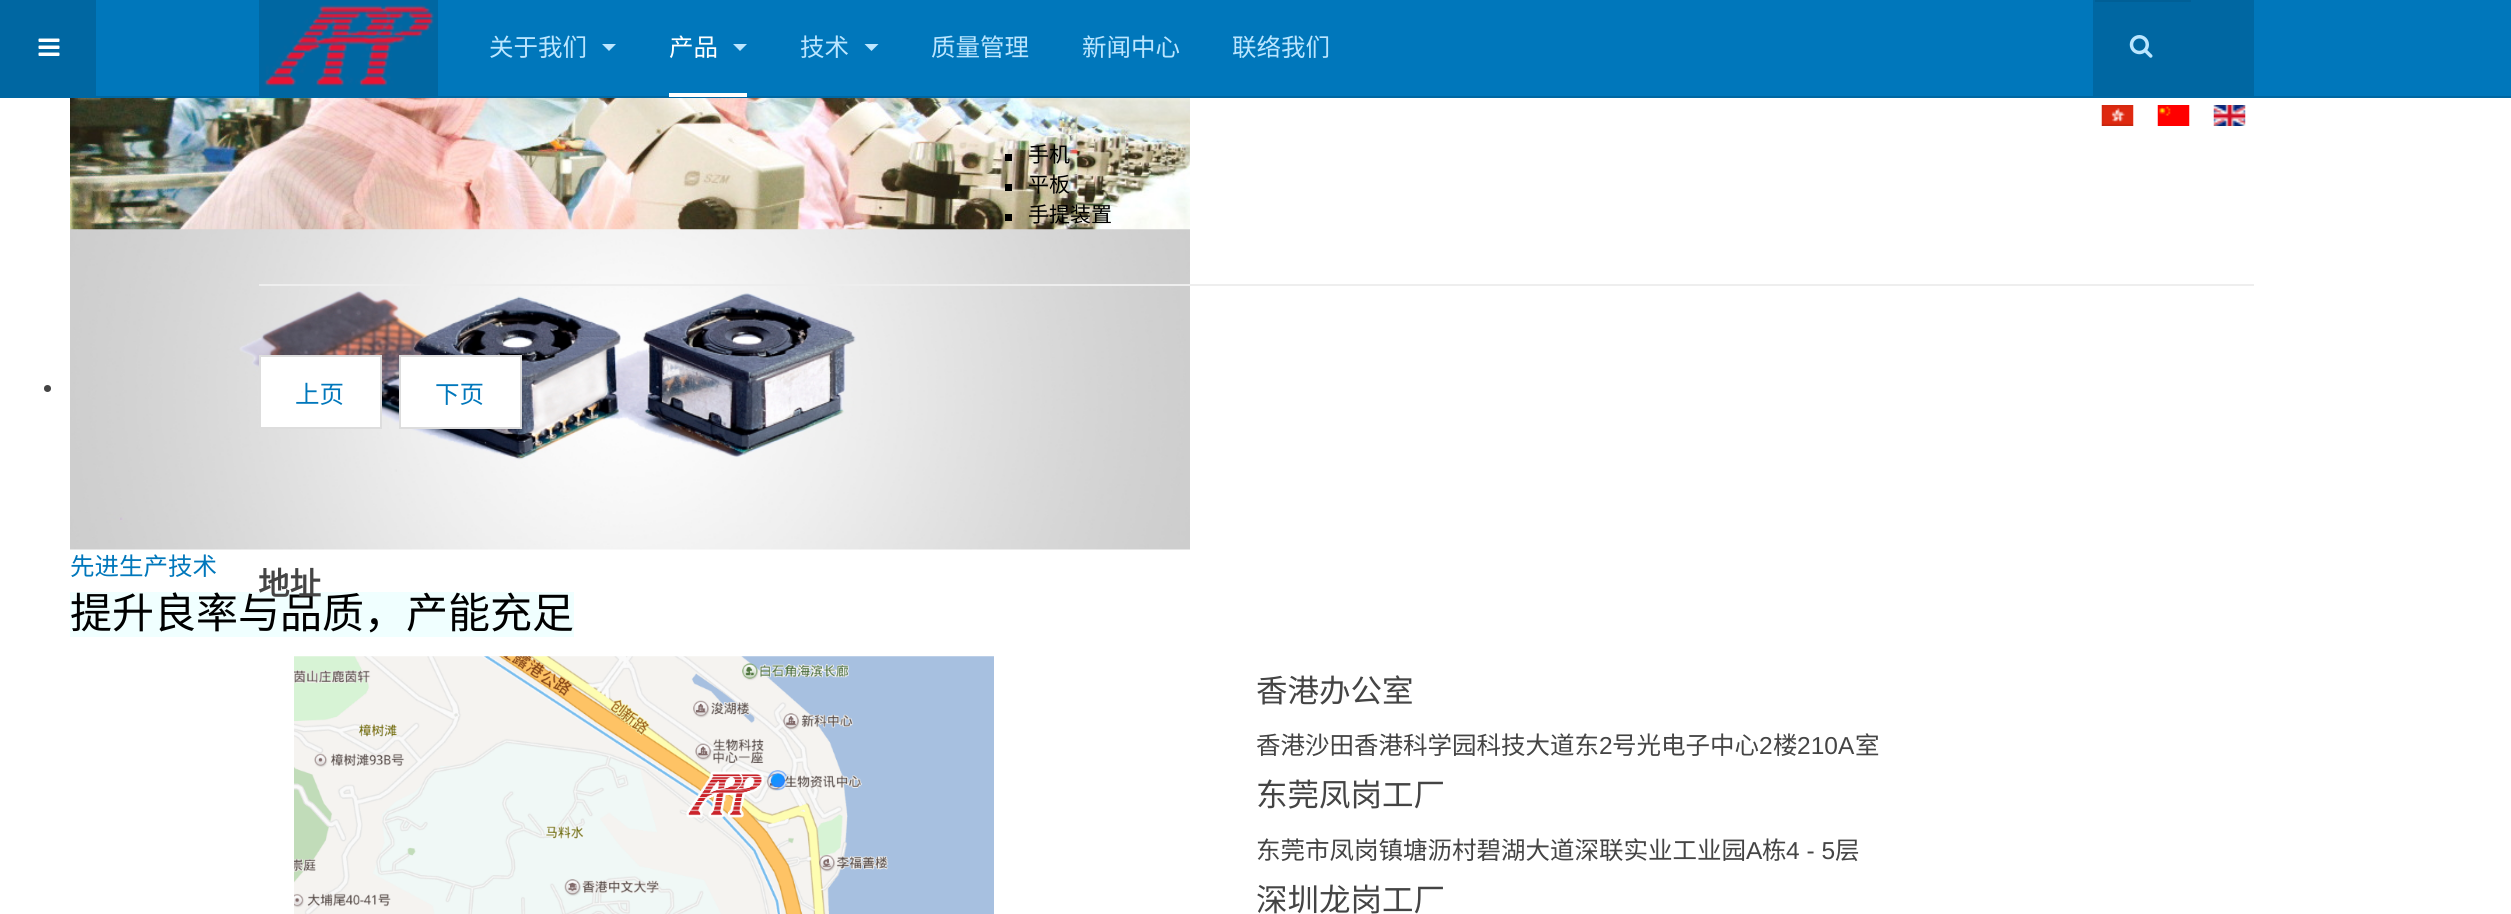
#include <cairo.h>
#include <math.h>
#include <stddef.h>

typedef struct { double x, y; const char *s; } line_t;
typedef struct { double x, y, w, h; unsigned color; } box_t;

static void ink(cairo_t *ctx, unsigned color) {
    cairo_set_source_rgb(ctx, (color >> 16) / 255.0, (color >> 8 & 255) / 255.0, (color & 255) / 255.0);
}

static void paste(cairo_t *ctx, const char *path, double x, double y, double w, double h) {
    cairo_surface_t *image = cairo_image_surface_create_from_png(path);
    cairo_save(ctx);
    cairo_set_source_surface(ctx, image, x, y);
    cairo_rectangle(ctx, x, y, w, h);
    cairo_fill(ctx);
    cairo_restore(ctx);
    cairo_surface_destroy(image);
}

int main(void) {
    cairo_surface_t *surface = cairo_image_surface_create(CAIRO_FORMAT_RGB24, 2511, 914);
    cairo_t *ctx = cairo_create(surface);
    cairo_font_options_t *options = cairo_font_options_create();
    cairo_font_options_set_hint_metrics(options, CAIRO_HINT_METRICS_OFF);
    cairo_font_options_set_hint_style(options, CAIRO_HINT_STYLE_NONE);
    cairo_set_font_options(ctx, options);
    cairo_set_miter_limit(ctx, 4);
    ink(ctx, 0xFFFFFF);
    cairo_paint(ctx);
    {
        static const box_t items[] = {
            {96, 0, 2415, 96, 0x0077BB},
            {0, 96, 2511, 2, 0x0067A2},
            {0, 0, 96, 96, 0x0067A2},
        };
        for (size_t i = 0; i < sizeof items / sizeof *items; i++) {
            ink(ctx, items[i].color);
            cairo_rectangle(ctx, items[i].x, items[i].y, items[i].w, items[i].h);
            cairo_fill(ctx);
        }
    }
    paste(ctx, "media/1.png", 38, 38, 22, 18);
    cairo_rectangle(ctx, 259, 0, 179, 96);
    cairo_fill(ctx);
    paste(ctx, "media/2.png", 264, 5, 170, 82);
    cairo_rectangle(ctx, 2093, 0, 161, 96);
    cairo_fill(ctx);
    ink(ctx, 0x005F96);
    cairo_rectangle(ctx, 2095, 0, 96, 2);
    cairo_fill(ctx);
    paste(ctx, "media/3.png", 2129, 35, 24, 23);
    paste(ctx, "media/4.png", 2101, 105, 33, 21);
    paste(ctx, "media/5.png", 2157, 105, 33, 21);
    paste(ctx, "media/6.png", 2213, 105, 33, 21);
    cairo_select_font_face(ctx, "Noto Sans CJK SC", CAIRO_FONT_SLANT_NORMAL, CAIRO_FONT_WEIGHT_NORMAL);
    cairo_set_font_size(ctx, 24.5);
    ink(ctx, 0xBBE6FF);
    cairo_move_to(ctx, 489, 56);
    cairo_show_text(ctx, "关于我们");
    cairo_new_path(ctx);
    cairo_move_to(ctx, 602, 44);
    cairo_line_to(ctx, 616, 44);
    cairo_line_to(ctx, 609, 51);
    cairo_close_path(ctx);
    cairo_fill(ctx);
    ink(ctx, 0xFFFFFF);
    cairo_rectangle(ctx, 669, 93, 78, 4);
    cairo_fill(ctx);
    cairo_move_to(ctx, 669, 56);
    cairo_show_text(ctx, "产品");
    ink(ctx, 0xBBE6FF);
    cairo_new_path(ctx);
    cairo_move_to(ctx, 733, 44);
    cairo_line_to(ctx, 747, 44);
    cairo_line_to(ctx, 740, 51);
    cairo_close_path(ctx);
    cairo_fill(ctx);
    cairo_move_to(ctx, 800, 56);
    cairo_show_text(ctx, "技术");
    cairo_new_path(ctx);
    cairo_move_to(ctx, 864.5, 44);
    cairo_line_to(ctx, 878.5, 44);
    cairo_line_to(ctx, 871.5, 51);
    cairo_close_path(ctx);
    cairo_fill(ctx);
    {
        static const line_t items[] = {
            {931, 56, "质量管理"},
            {1082, 56, "新闻中心"},
            {1232, 56, "联络我们"},
        };
        for (size_t i = 0; i < sizeof items / sizeof *items; i++) {
            cairo_move_to(ctx, items[i].x, items[i].y);
            cairo_show_text(ctx, items[i].s);
        }
    }
    paste(ctx, "media/7.png", 70, 98, 1120, 132);
    ink(ctx, 0x000000);
    cairo_rectangle(ctx, 1005, 154, 7, 7);
    cairo_fill(ctx);
    cairo_set_font_size(ctx, 21);
    cairo_move_to(ctx, 1028, 162);
    cairo_show_text(ctx, "手机");
    cairo_rectangle(ctx, 1005, 184, 7, 7);
    cairo_fill(ctx);
    cairo_move_to(ctx, 1028, 192);
    cairo_show_text(ctx, "平板");
    cairo_rectangle(ctx, 1005, 214, 7, 7);
    cairo_fill(ctx);
    cairo_move_to(ctx, 1028, 222);
    cairo_show_text(ctx, "手提装置");
    paste(ctx, "media/8.png", 70, 229, 1120, 321);
    ink(ctx, 0xEEEEEE);
    cairo_rectangle(ctx, 259, 284, 1995, 2);
    cairo_fill(ctx);
    ink(ctx, 0xFFFFFF);
    cairo_rectangle(ctx, 260, 356, 121, 72);
    cairo_fill_preserve(ctx);
    ink(ctx, 0xDDDDDD);
    cairo_stroke(ctx);
    cairo_set_font_size(ctx, 24.5);
    ink(ctx, 0x0077BB);
    cairo_move_to(ctx, 295, 403);
    cairo_show_text(ctx, "上页");
    ink(ctx, 0xFFFFFF);
    cairo_rectangle(ctx, 400, 356, 121, 72);
    cairo_fill_preserve(ctx);
    ink(ctx, 0xDDDDDD);
    cairo_stroke(ctx);
    ink(ctx, 0x0077BB);
    cairo_move_to(ctx, 435, 403);
    cairo_show_text(ctx, "下页");
    ink(ctx, 0x444444);
    cairo_new_path(ctx);
    cairo_arc(ctx, 47.5, 388.5, 3.5, 0, 2 * M_PI);
    cairo_fill(ctx);
    ink(ctx, 0x0077BB);
    cairo_move_to(ctx, 70, 575);
    cairo_show_text(ctx, "先进生产技术");
    ink(ctx, 0xF0FFFF);
    cairo_rectangle(ctx, 70, 592, 504, 45);
    cairo_fill(ctx);
    cairo_set_font_size(ctx, 42);
    ink(ctx, 0x000000);
    cairo_move_to(ctx, 70, 628);
    cairo_show_text(ctx, "提升良率与品质，产能充足");
    cairo_select_font_face(ctx, "Noto Sans CJK SC", CAIRO_FONT_SLANT_NORMAL, CAIRO_FONT_WEIGHT_BOLD);
    cairo_set_font_size(ctx, 31.5);
    ink(ctx, 0x444444);
    cairo_move_to(ctx, 258, 595);
    cairo_show_text(ctx, "地址");
    paste(ctx, "media/9.png", 294, 656, 700, 258);
    cairo_select_font_face(ctx, "Noto Sans CJK SC", CAIRO_FONT_SLANT_NORMAL, CAIRO_FONT_WEIGHT_NORMAL);
    cairo_move_to(ctx, 1256, 702);
    cairo_show_text(ctx, "香港办公室");
    cairo_set_font_size(ctx, 24.5);
    cairo_move_to(ctx, 1256, 754);
    cairo_show_text(ctx, "香港沙田香港科学园科技大道东");
    cairo_select_font_face(ctx, "Liberation Sans", CAIRO_FONT_SLANT_NORMAL, CAIRO_FONT_WEIGHT_NORMAL);
    cairo_move_to(ctx, 1599, 754);
    cairo_show_text(ctx, "2");
    cairo_select_font_face(ctx, "Noto Sans CJK SC", CAIRO_FONT_SLANT_NORMAL, CAIRO_FONT_WEIGHT_NORMAL);
    cairo_move_to(ctx, 1612, 754);
    cairo_show_text(ctx, "号光电子中心");
    cairo_select_font_face(ctx, "Liberation Sans", CAIRO_FONT_SLANT_NORMAL, CAIRO_FONT_WEIGHT_NORMAL);
    cairo_move_to(ctx, 1759, 754);
    cairo_show_text(ctx, "2");
    cairo_select_font_face(ctx, "Noto Sans CJK SC", CAIRO_FONT_SLANT_NORMAL, CAIRO_FONT_WEIGHT_NORMAL);
    cairo_move_to(ctx, 1773, 754);
    cairo_show_text(ctx, "楼");
    cairo_select_font_face(ctx, "Liberation Sans", CAIRO_FONT_SLANT_NORMAL, CAIRO_FONT_WEIGHT_NORMAL);
    cairo_move_to(ctx, 1797, 754);
    cairo_show_text(ctx, "210A");
    cairo_select_font_face(ctx, "Noto Sans CJK SC", CAIRO_FONT_SLANT_NORMAL, CAIRO_FONT_WEIGHT_NORMAL);
    cairo_move_to(ctx, 1855, 754);
    cairo_show_text(ctx, "室");
    cairo_set_font_size(ctx, 31.5);
    cairo_move_to(ctx, 1256, 806);
    cairo_show_text(ctx, "东莞凤岗工厂");
    cairo_set_font_size(ctx, 24.5);
    cairo_move_to(ctx, 1256, 859);
    cairo_show_text(ctx, "东莞市凤岗镇塘沥村碧湖大道深联实业工业园");
    cairo_select_font_face(ctx, "Liberation Sans", CAIRO_FONT_SLANT_NORMAL, CAIRO_FONT_WEIGHT_NORMAL);
    cairo_move_to(ctx, 1746, 859);
    cairo_show_text(ctx, "A");
    cairo_select_font_face(ctx, "Noto Sans CJK SC", CAIRO_FONT_SLANT_NORMAL, CAIRO_FONT_WEIGHT_NORMAL);
    cairo_move_to(ctx, 1762, 859);
    cairo_show_text(ctx, "栋");
    cairo_select_font_face(ctx, "Liberation Sans", CAIRO_FONT_SLANT_NORMAL, CAIRO_FONT_WEIGHT_NORMAL);
    cairo_move_to(ctx, 1786, 859);
    cairo_show_text(ctx, "4 - 5");
    cairo_select_font_face(ctx, "Noto Sans CJK SC", CAIRO_FONT_SLANT_NORMAL, CAIRO_FONT_WEIGHT_NORMAL);
    cairo_move_to(ctx, 1835, 859);
    cairo_show_text(ctx, "层");
    cairo_set_font_size(ctx, 31.5);
    cairo_move_to(ctx, 1256, 911);
    cairo_show_text(ctx, "深圳龙岗工厂");
    cairo_surface_write_to_png(surface, "image.png");
    cairo_font_options_destroy(options);
    cairo_destroy(ctx);
    cairo_surface_destroy(surface);
    return 0;
}
